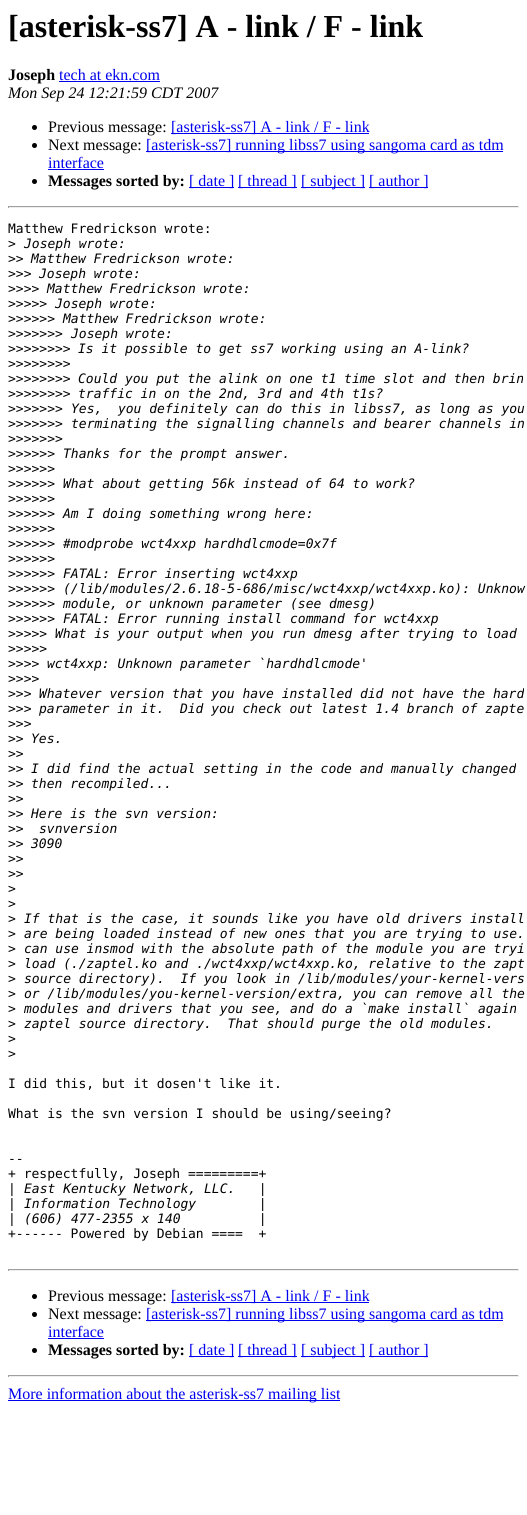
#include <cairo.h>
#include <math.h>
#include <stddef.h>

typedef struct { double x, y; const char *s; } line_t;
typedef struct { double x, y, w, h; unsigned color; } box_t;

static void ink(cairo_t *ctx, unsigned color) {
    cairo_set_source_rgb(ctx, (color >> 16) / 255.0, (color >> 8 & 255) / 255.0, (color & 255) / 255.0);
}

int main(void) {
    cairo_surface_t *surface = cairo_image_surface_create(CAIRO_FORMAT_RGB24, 527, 1515);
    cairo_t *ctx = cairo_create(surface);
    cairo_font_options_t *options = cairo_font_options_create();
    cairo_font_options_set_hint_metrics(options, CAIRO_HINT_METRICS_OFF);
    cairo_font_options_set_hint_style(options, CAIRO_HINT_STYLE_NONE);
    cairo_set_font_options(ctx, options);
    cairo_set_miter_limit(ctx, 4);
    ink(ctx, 0xFFFFFF);
    cairo_paint(ctx);
    cairo_select_font_face(ctx, "Liberation Serif", CAIRO_FONT_SLANT_NORMAL, CAIRO_FONT_WEIGHT_BOLD);
    cairo_set_font_size(ctx, 32);
    ink(ctx, 0x000000);
    cairo_move_to(ctx, 8, 37);
    cairo_show_text(ctx, "[asterisk-ss7] A - link / F - link");
    cairo_set_font_size(ctx, 16);
    cairo_move_to(ctx, 8, 80);
    cairo_show_text(ctx, "Joseph");
    cairo_select_font_face(ctx, "Liberation Serif", CAIRO_FONT_SLANT_NORMAL, CAIRO_FONT_WEIGHT_NORMAL);
    ink(ctx, 0x0000EE);
    cairo_move_to(ctx, 59, 80);
    cairo_show_text(ctx, "tech at ekn.com");
    cairo_rectangle(ctx, 59, 81, 101, 1);
    cairo_fill(ctx);
    cairo_select_font_face(ctx, "Liberation Serif", CAIRO_FONT_SLANT_ITALIC, CAIRO_FONT_WEIGHT_NORMAL);
    ink(ctx, 0x000000);
    cairo_move_to(ctx, 8, 98);
    cairo_show_text(ctx, "Mon Sep 24 12:21:59 CDT 2007");
    cairo_new_path(ctx);
    cairo_arc(ctx, 34.5, 127.5, 2.5, 0, 2 * M_PI);
    cairo_fill(ctx);
    cairo_select_font_face(ctx, "Liberation Serif", CAIRO_FONT_SLANT_NORMAL, CAIRO_FONT_WEIGHT_NORMAL);
    cairo_move_to(ctx, 48, 132);
    cairo_show_text(ctx, "Previous message:");
    ink(ctx, 0x0000EE);
    cairo_rectangle(ctx, 171, 133, 198, 1);
    cairo_fill(ctx);
    cairo_move_to(ctx, 171, 132);
    cairo_show_text(ctx, "[asterisk-ss7] A - link / F - link");
    ink(ctx, 0x000000);
    cairo_new_path(ctx);
    cairo_arc(ctx, 34.5, 145.5, 2.5, 0, 2 * M_PI);
    cairo_fill(ctx);
    cairo_move_to(ctx, 48, 150);
    cairo_show_text(ctx, "Next message:");
    ink(ctx, 0x0000EE);
    cairo_rectangle(ctx, 146, 151, 357, 1);
    cairo_fill(ctx);
    cairo_move_to(ctx, 146, 150);
    cairo_show_text(ctx, "[asterisk-ss7] running libss7 using sangoma card as tdm");
    cairo_move_to(ctx, 48, 168);
    cairo_show_text(ctx, "interface");
    cairo_rectangle(ctx, 48, 169, 56, 1);
    cairo_fill(ctx);
    ink(ctx, 0x000000);
    cairo_arc(ctx, 34.5, 181.5, 2.5, 0, 2 * M_PI);
    cairo_fill(ctx);
    cairo_select_font_face(ctx, "Liberation Serif", CAIRO_FONT_SLANT_NORMAL, CAIRO_FONT_WEIGHT_BOLD);
    cairo_move_to(ctx, 48, 186);
    cairo_show_text(ctx, "Messages sorted by:");
    ink(ctx, 0x0000EE);
    cairo_rectangle(ctx, 189, 187, 45, 1);
    cairo_fill(ctx);
    cairo_select_font_face(ctx, "Liberation Serif", CAIRO_FONT_SLANT_NORMAL, CAIRO_FONT_WEIGHT_NORMAL);
    cairo_move_to(ctx, 189, 186);
    cairo_show_text(ctx, "[ date ]");
    cairo_rectangle(ctx, 238, 187, 59, 1);
    cairo_fill(ctx);
    cairo_move_to(ctx, 238, 186);
    cairo_show_text(ctx, "[ thread ]");
    cairo_rectangle(ctx, 301, 187, 64, 1);
    cairo_fill(ctx);
    cairo_move_to(ctx, 301, 186);
    cairo_show_text(ctx, "[ subject ]");
    cairo_rectangle(ctx, 369, 187, 59, 1);
    cairo_fill(ctx);
    cairo_move_to(ctx, 369, 186);
    cairo_show_text(ctx, "[ author ]");
    {
        static const box_t items[] = {
            {8, 206, 511, 1, 0x9F9F9F},
            {518, 206, 1, 2, 0xEEEEEE},
            {8, 207, 511, 1, 0xEEEEEE},
            {8, 206, 1, 2, 0x9F9F9F},
        };
        for (size_t i = 0; i < sizeof items / sizeof *items; i++) {
            ink(ctx, items[i].color);
            cairo_rectangle(ctx, items[i].x, items[i].y, items[i].w, items[i].h);
            cairo_fill(ctx);
        }
    }
    cairo_select_font_face(ctx, "DejaVu Sans Mono", CAIRO_FONT_SLANT_NORMAL, CAIRO_FONT_WEIGHT_NORMAL);
    cairo_set_font_size(ctx, 13);
    ink(ctx, 0x000000);
    cairo_move_to(ctx, 8, 233);
    cairo_show_text(ctx, "Matthew Fredrickson wrote:");
    cairo_move_to(ctx, 8, 248);
    cairo_show_text(ctx, ">");
    cairo_select_font_face(ctx, "DejaVu Sans Mono", CAIRO_FONT_SLANT_ITALIC, CAIRO_FONT_WEIGHT_NORMAL);
    cairo_move_to(ctx, 24, 248);
    cairo_show_text(ctx, "Joseph wrote:");
    cairo_select_font_face(ctx, "DejaVu Sans Mono", CAIRO_FONT_SLANT_NORMAL, CAIRO_FONT_WEIGHT_NORMAL);
    cairo_move_to(ctx, 8, 263);
    cairo_show_text(ctx, ">>");
    cairo_select_font_face(ctx, "DejaVu Sans Mono", CAIRO_FONT_SLANT_ITALIC, CAIRO_FONT_WEIGHT_NORMAL);
    cairo_move_to(ctx, 31, 263);
    cairo_show_text(ctx, "Matthew Fredrickson wrote:");
    cairo_select_font_face(ctx, "DejaVu Sans Mono", CAIRO_FONT_SLANT_NORMAL, CAIRO_FONT_WEIGHT_NORMAL);
    cairo_move_to(ctx, 8, 278);
    cairo_show_text(ctx, ">>>");
    cairo_select_font_face(ctx, "DejaVu Sans Mono", CAIRO_FONT_SLANT_ITALIC, CAIRO_FONT_WEIGHT_NORMAL);
    cairo_move_to(ctx, 39, 278);
    cairo_show_text(ctx, "Joseph wrote:");
    cairo_select_font_face(ctx, "DejaVu Sans Mono", CAIRO_FONT_SLANT_NORMAL, CAIRO_FONT_WEIGHT_NORMAL);
    cairo_move_to(ctx, 8, 293);
    cairo_show_text(ctx, ">>>>");
    cairo_select_font_face(ctx, "DejaVu Sans Mono", CAIRO_FONT_SLANT_ITALIC, CAIRO_FONT_WEIGHT_NORMAL);
    cairo_move_to(ctx, 47, 293);
    cairo_show_text(ctx, "Matthew Fredrickson wrote:");
    cairo_select_font_face(ctx, "DejaVu Sans Mono", CAIRO_FONT_SLANT_NORMAL, CAIRO_FONT_WEIGHT_NORMAL);
    cairo_move_to(ctx, 8, 308);
    cairo_show_text(ctx, ">>>>>");
    cairo_select_font_face(ctx, "DejaVu Sans Mono", CAIRO_FONT_SLANT_ITALIC, CAIRO_FONT_WEIGHT_NORMAL);
    cairo_move_to(ctx, 55, 308);
    cairo_show_text(ctx, "Joseph wrote:");
    cairo_select_font_face(ctx, "DejaVu Sans Mono", CAIRO_FONT_SLANT_NORMAL, CAIRO_FONT_WEIGHT_NORMAL);
    cairo_move_to(ctx, 8, 323);
    cairo_show_text(ctx, ">>>>>>");
    cairo_select_font_face(ctx, "DejaVu Sans Mono", CAIRO_FONT_SLANT_ITALIC, CAIRO_FONT_WEIGHT_NORMAL);
    cairo_move_to(ctx, 63, 323);
    cairo_show_text(ctx, "Matthew Fredrickson wrote:");
    cairo_select_font_face(ctx, "DejaVu Sans Mono", CAIRO_FONT_SLANT_NORMAL, CAIRO_FONT_WEIGHT_NORMAL);
    cairo_move_to(ctx, 8, 338);
    cairo_show_text(ctx, ">>>>>>>");
    cairo_select_font_face(ctx, "DejaVu Sans Mono", CAIRO_FONT_SLANT_ITALIC, CAIRO_FONT_WEIGHT_NORMAL);
    cairo_move_to(ctx, 71, 338);
    cairo_show_text(ctx, "Joseph wrote:");
    cairo_select_font_face(ctx, "DejaVu Sans Mono", CAIRO_FONT_SLANT_NORMAL, CAIRO_FONT_WEIGHT_NORMAL);
    cairo_move_to(ctx, 8, 353);
    cairo_show_text(ctx, ">>>>>>>>");
    cairo_select_font_face(ctx, "DejaVu Sans Mono", CAIRO_FONT_SLANT_ITALIC, CAIRO_FONT_WEIGHT_NORMAL);
    cairo_move_to(ctx, 78, 353);
    cairo_show_text(ctx, "Is it possible to get ss7 working using an A-link?");
    cairo_select_font_face(ctx, "DejaVu Sans Mono", CAIRO_FONT_SLANT_NORMAL, CAIRO_FONT_WEIGHT_NORMAL);
    cairo_move_to(ctx, 8, 368);
    cairo_show_text(ctx, ">>>>>>>>");
    cairo_move_to(ctx, 8, 383);
    cairo_show_text(ctx, ">>>>>>>>");
    cairo_select_font_face(ctx, "DejaVu Sans Mono", CAIRO_FONT_SLANT_ITALIC, CAIRO_FONT_WEIGHT_NORMAL);
    cairo_move_to(ctx, 78, 383);
    cairo_show_text(ctx, "Could you put the alink on one t1 time slot and then brin");
    cairo_select_font_face(ctx, "DejaVu Sans Mono", CAIRO_FONT_SLANT_NORMAL, CAIRO_FONT_WEIGHT_NORMAL);
    cairo_move_to(ctx, 8, 398);
    cairo_show_text(ctx, ">>>>>>>>");
    cairo_select_font_face(ctx, "DejaVu Sans Mono", CAIRO_FONT_SLANT_ITALIC, CAIRO_FONT_WEIGHT_NORMAL);
    cairo_move_to(ctx, 78, 398);
    cairo_show_text(ctx, "traffic in on the 2nd, 3rd and 4th t1s?");
    cairo_select_font_face(ctx, "DejaVu Sans Mono", CAIRO_FONT_SLANT_NORMAL, CAIRO_FONT_WEIGHT_NORMAL);
    cairo_move_to(ctx, 8, 413);
    cairo_show_text(ctx, ">>>>>>>");
    cairo_select_font_face(ctx, "DejaVu Sans Mono", CAIRO_FONT_SLANT_ITALIC, CAIRO_FONT_WEIGHT_NORMAL);
    cairo_move_to(ctx, 71, 413);
    cairo_show_text(ctx, "Yes,  you definitely can do this in libss7, as long as you");
    cairo_select_font_face(ctx, "DejaVu Sans Mono", CAIRO_FONT_SLANT_NORMAL, CAIRO_FONT_WEIGHT_NORMAL);
    cairo_move_to(ctx, 8, 428);
    cairo_show_text(ctx, ">>>>>>>");
    cairo_select_font_face(ctx, "DejaVu Sans Mono", CAIRO_FONT_SLANT_ITALIC, CAIRO_FONT_WEIGHT_NORMAL);
    cairo_move_to(ctx, 71, 428);
    cairo_show_text(ctx, "terminating the signalling channels and bearer channels in");
    cairo_select_font_face(ctx, "DejaVu Sans Mono", CAIRO_FONT_SLANT_NORMAL, CAIRO_FONT_WEIGHT_NORMAL);
    cairo_move_to(ctx, 8, 443);
    cairo_show_text(ctx, ">>>>>>>");
    cairo_move_to(ctx, 8, 458);
    cairo_show_text(ctx, ">>>>>>");
    cairo_select_font_face(ctx, "DejaVu Sans Mono", CAIRO_FONT_SLANT_ITALIC, CAIRO_FONT_WEIGHT_NORMAL);
    cairo_move_to(ctx, 63, 458);
    cairo_show_text(ctx, "Thanks for the prompt answer.");
    cairo_select_font_face(ctx, "DejaVu Sans Mono", CAIRO_FONT_SLANT_NORMAL, CAIRO_FONT_WEIGHT_NORMAL);
    cairo_move_to(ctx, 8, 473);
    cairo_show_text(ctx, ">>>>>>");
    cairo_move_to(ctx, 8, 488);
    cairo_show_text(ctx, ">>>>>>");
    cairo_select_font_face(ctx, "DejaVu Sans Mono", CAIRO_FONT_SLANT_ITALIC, CAIRO_FONT_WEIGHT_NORMAL);
    cairo_move_to(ctx, 63, 488);
    cairo_show_text(ctx, "What about getting 56k instead of 64 to work?");
    cairo_select_font_face(ctx, "DejaVu Sans Mono", CAIRO_FONT_SLANT_NORMAL, CAIRO_FONT_WEIGHT_NORMAL);
    cairo_move_to(ctx, 8, 503);
    cairo_show_text(ctx, ">>>>>>");
    cairo_move_to(ctx, 8, 518);
    cairo_show_text(ctx, ">>>>>>");
    cairo_select_font_face(ctx, "DejaVu Sans Mono", CAIRO_FONT_SLANT_ITALIC, CAIRO_FONT_WEIGHT_NORMAL);
    cairo_move_to(ctx, 63, 518);
    cairo_show_text(ctx, "Am I doing something wrong here:");
    cairo_select_font_face(ctx, "DejaVu Sans Mono", CAIRO_FONT_SLANT_NORMAL, CAIRO_FONT_WEIGHT_NORMAL);
    cairo_move_to(ctx, 8, 533);
    cairo_show_text(ctx, ">>>>>>");
    cairo_move_to(ctx, 8, 548);
    cairo_show_text(ctx, ">>>>>>");
    cairo_select_font_face(ctx, "DejaVu Sans Mono", CAIRO_FONT_SLANT_ITALIC, CAIRO_FONT_WEIGHT_NORMAL);
    cairo_move_to(ctx, 63, 548);
    cairo_show_text(ctx, "#modprobe wct4xxp hardhdlcmode=0x7f");
    cairo_select_font_face(ctx, "DejaVu Sans Mono", CAIRO_FONT_SLANT_NORMAL, CAIRO_FONT_WEIGHT_NORMAL);
    cairo_move_to(ctx, 8, 563);
    cairo_show_text(ctx, ">>>>>>");
    cairo_move_to(ctx, 8, 578);
    cairo_show_text(ctx, ">>>>>>");
    cairo_select_font_face(ctx, "DejaVu Sans Mono", CAIRO_FONT_SLANT_ITALIC, CAIRO_FONT_WEIGHT_NORMAL);
    cairo_move_to(ctx, 63, 578);
    cairo_show_text(ctx, "FATAL: Error inserting wct4xxp");
    cairo_select_font_face(ctx, "DejaVu Sans Mono", CAIRO_FONT_SLANT_NORMAL, CAIRO_FONT_WEIGHT_NORMAL);
    cairo_move_to(ctx, 8, 593);
    cairo_show_text(ctx, ">>>>>>");
    cairo_select_font_face(ctx, "DejaVu Sans Mono", CAIRO_FONT_SLANT_ITALIC, CAIRO_FONT_WEIGHT_NORMAL);
    cairo_move_to(ctx, 63, 593);
    cairo_show_text(ctx, "(/lib/modules/2.6.18-5-686/misc/wct4xxp/wct4xxp.ko): Unknow");
    cairo_select_font_face(ctx, "DejaVu Sans Mono", CAIRO_FONT_SLANT_NORMAL, CAIRO_FONT_WEIGHT_NORMAL);
    cairo_move_to(ctx, 8, 608);
    cairo_show_text(ctx, ">>>>>>");
    cairo_select_font_face(ctx, "DejaVu Sans Mono", CAIRO_FONT_SLANT_ITALIC, CAIRO_FONT_WEIGHT_NORMAL);
    cairo_move_to(ctx, 63, 608);
    cairo_show_text(ctx, "module, or unknown parameter (see dmesg)");
    cairo_select_font_face(ctx, "DejaVu Sans Mono", CAIRO_FONT_SLANT_NORMAL, CAIRO_FONT_WEIGHT_NORMAL);
    cairo_move_to(ctx, 8, 623);
    cairo_show_text(ctx, ">>>>>>");
    cairo_select_font_face(ctx, "DejaVu Sans Mono", CAIRO_FONT_SLANT_ITALIC, CAIRO_FONT_WEIGHT_NORMAL);
    cairo_move_to(ctx, 63, 623);
    cairo_show_text(ctx, "FATAL: Error running install command for wct4xxp");
    cairo_select_font_face(ctx, "DejaVu Sans Mono", CAIRO_FONT_SLANT_NORMAL, CAIRO_FONT_WEIGHT_NORMAL);
    cairo_move_to(ctx, 8, 638);
    cairo_show_text(ctx, ">>>>>");
    cairo_select_font_face(ctx, "DejaVu Sans Mono", CAIRO_FONT_SLANT_ITALIC, CAIRO_FONT_WEIGHT_NORMAL);
    cairo_move_to(ctx, 55, 638);
    cairo_show_text(ctx, "What is your output when you run dmesg after trying to load");
    cairo_select_font_face(ctx, "DejaVu Sans Mono", CAIRO_FONT_SLANT_NORMAL, CAIRO_FONT_WEIGHT_NORMAL);
    cairo_move_to(ctx, 8, 653);
    cairo_show_text(ctx, ">>>>>");
    cairo_move_to(ctx, 8, 668);
    cairo_show_text(ctx, ">>>>");
    cairo_select_font_face(ctx, "DejaVu Sans Mono", CAIRO_FONT_SLANT_ITALIC, CAIRO_FONT_WEIGHT_NORMAL);
    cairo_move_to(ctx, 47, 668);
    cairo_show_text(ctx, "wct4xxp: Unknown parameter `hardhdlcmode'");
    cairo_select_font_face(ctx, "DejaVu Sans Mono", CAIRO_FONT_SLANT_NORMAL, CAIRO_FONT_WEIGHT_NORMAL);
    cairo_move_to(ctx, 8, 683);
    cairo_show_text(ctx, ">>>>");
    cairo_move_to(ctx, 8, 698);
    cairo_show_text(ctx, ">>>");
    cairo_select_font_face(ctx, "DejaVu Sans Mono", CAIRO_FONT_SLANT_ITALIC, CAIRO_FONT_WEIGHT_NORMAL);
    cairo_move_to(ctx, 39, 698);
    cairo_show_text(ctx, "Whatever version that you have installed did not have the hard");
    cairo_select_font_face(ctx, "DejaVu Sans Mono", CAIRO_FONT_SLANT_NORMAL, CAIRO_FONT_WEIGHT_NORMAL);
    cairo_move_to(ctx, 8, 713);
    cairo_show_text(ctx, ">>>");
    cairo_select_font_face(ctx, "DejaVu Sans Mono", CAIRO_FONT_SLANT_ITALIC, CAIRO_FONT_WEIGHT_NORMAL);
    cairo_move_to(ctx, 39, 713);
    cairo_show_text(ctx, "parameter in it.  Did you check out latest 1.4 branch of zapte");
    cairo_select_font_face(ctx, "DejaVu Sans Mono", CAIRO_FONT_SLANT_NORMAL, CAIRO_FONT_WEIGHT_NORMAL);
    cairo_move_to(ctx, 8, 728);
    cairo_show_text(ctx, ">>>");
    cairo_move_to(ctx, 8, 743);
    cairo_show_text(ctx, ">>");
    cairo_select_font_face(ctx, "DejaVu Sans Mono", CAIRO_FONT_SLANT_ITALIC, CAIRO_FONT_WEIGHT_NORMAL);
    cairo_move_to(ctx, 31, 743);
    cairo_show_text(ctx, "Yes.");
    cairo_select_font_face(ctx, "DejaVu Sans Mono", CAIRO_FONT_SLANT_NORMAL, CAIRO_FONT_WEIGHT_NORMAL);
    cairo_move_to(ctx, 8, 758);
    cairo_show_text(ctx, ">>");
    cairo_move_to(ctx, 8, 773);
    cairo_show_text(ctx, ">>");
    cairo_select_font_face(ctx, "DejaVu Sans Mono", CAIRO_FONT_SLANT_ITALIC, CAIRO_FONT_WEIGHT_NORMAL);
    cairo_move_to(ctx, 31, 773);
    cairo_show_text(ctx, "I did find the actual setting in the code and manually changed");
    cairo_select_font_face(ctx, "DejaVu Sans Mono", CAIRO_FONT_SLANT_NORMAL, CAIRO_FONT_WEIGHT_NORMAL);
    cairo_move_to(ctx, 8, 788);
    cairo_show_text(ctx, ">>");
    cairo_select_font_face(ctx, "DejaVu Sans Mono", CAIRO_FONT_SLANT_ITALIC, CAIRO_FONT_WEIGHT_NORMAL);
    cairo_move_to(ctx, 31, 788);
    cairo_show_text(ctx, "then recompiled...");
    cairo_select_font_face(ctx, "DejaVu Sans Mono", CAIRO_FONT_SLANT_NORMAL, CAIRO_FONT_WEIGHT_NORMAL);
    cairo_move_to(ctx, 8, 803);
    cairo_show_text(ctx, ">>");
    cairo_move_to(ctx, 8, 818);
    cairo_show_text(ctx, ">>");
    cairo_select_font_face(ctx, "DejaVu Sans Mono", CAIRO_FONT_SLANT_ITALIC, CAIRO_FONT_WEIGHT_NORMAL);
    cairo_move_to(ctx, 31, 818);
    cairo_show_text(ctx, "Here is the svn version:");
    cairo_select_font_face(ctx, "DejaVu Sans Mono", CAIRO_FONT_SLANT_NORMAL, CAIRO_FONT_WEIGHT_NORMAL);
    cairo_move_to(ctx, 8, 833);
    cairo_show_text(ctx, ">>");
    cairo_select_font_face(ctx, "DejaVu Sans Mono", CAIRO_FONT_SLANT_ITALIC, CAIRO_FONT_WEIGHT_NORMAL);
    cairo_move_to(ctx, 39, 833);
    cairo_show_text(ctx, "svnversion");
    cairo_select_font_face(ctx, "DejaVu Sans Mono", CAIRO_FONT_SLANT_NORMAL, CAIRO_FONT_WEIGHT_NORMAL);
    cairo_move_to(ctx, 8, 848);
    cairo_show_text(ctx, ">>");
    cairo_select_font_face(ctx, "DejaVu Sans Mono", CAIRO_FONT_SLANT_ITALIC, CAIRO_FONT_WEIGHT_NORMAL);
    cairo_move_to(ctx, 31, 848);
    cairo_show_text(ctx, "3090");
    cairo_select_font_face(ctx, "DejaVu Sans Mono", CAIRO_FONT_SLANT_NORMAL, CAIRO_FONT_WEIGHT_NORMAL);
    {
        static const line_t items[] = {
            {8, 863, ">>"},
            {8, 878, ">>"},
            {8, 893, ">"},
            {8, 908, ">"},
            {8, 923, ">"},
        };
        for (size_t i = 0; i < sizeof items / sizeof *items; i++) {
            cairo_move_to(ctx, items[i].x, items[i].y);
            cairo_show_text(ctx, items[i].s);
        }
    }
    cairo_select_font_face(ctx, "DejaVu Sans Mono", CAIRO_FONT_SLANT_ITALIC, CAIRO_FONT_WEIGHT_NORMAL);
    cairo_move_to(ctx, 24, 923);
    cairo_show_text(ctx, "If that is the case, it sounds like you have old drivers install");
    cairo_select_font_face(ctx, "DejaVu Sans Mono", CAIRO_FONT_SLANT_NORMAL, CAIRO_FONT_WEIGHT_NORMAL);
    cairo_move_to(ctx, 8, 938);
    cairo_show_text(ctx, ">");
    cairo_select_font_face(ctx, "DejaVu Sans Mono", CAIRO_FONT_SLANT_ITALIC, CAIRO_FONT_WEIGHT_NORMAL);
    cairo_move_to(ctx, 24, 938);
    cairo_show_text(ctx, "are being loaded instead of new ones that you are trying to use.");
    cairo_select_font_face(ctx, "DejaVu Sans Mono", CAIRO_FONT_SLANT_NORMAL, CAIRO_FONT_WEIGHT_NORMAL);
    cairo_move_to(ctx, 8, 953);
    cairo_show_text(ctx, ">");
    cairo_select_font_face(ctx, "DejaVu Sans Mono", CAIRO_FONT_SLANT_ITALIC, CAIRO_FONT_WEIGHT_NORMAL);
    cairo_move_to(ctx, 24, 953);
    cairo_show_text(ctx, "can use insmod with the absolute path of the module you are tryi");
    cairo_select_font_face(ctx, "DejaVu Sans Mono", CAIRO_FONT_SLANT_NORMAL, CAIRO_FONT_WEIGHT_NORMAL);
    cairo_move_to(ctx, 8, 968);
    cairo_show_text(ctx, ">");
    cairo_select_font_face(ctx, "DejaVu Sans Mono", CAIRO_FONT_SLANT_ITALIC, CAIRO_FONT_WEIGHT_NORMAL);
    cairo_move_to(ctx, 24, 968);
    cairo_show_text(ctx, "load (./zaptel.ko and ./wct4xxp/wct4xxp.ko, relative to the zapt");
    cairo_select_font_face(ctx, "DejaVu Sans Mono", CAIRO_FONT_SLANT_NORMAL, CAIRO_FONT_WEIGHT_NORMAL);
    cairo_move_to(ctx, 8, 983);
    cairo_show_text(ctx, ">");
    cairo_select_font_face(ctx, "DejaVu Sans Mono", CAIRO_FONT_SLANT_ITALIC, CAIRO_FONT_WEIGHT_NORMAL);
    cairo_move_to(ctx, 24, 983);
    cairo_show_text(ctx, "source directory).  If you look in /lib/modules/your-kernel-vers");
    cairo_select_font_face(ctx, "DejaVu Sans Mono", CAIRO_FONT_SLANT_NORMAL, CAIRO_FONT_WEIGHT_NORMAL);
    cairo_move_to(ctx, 8, 998);
    cairo_show_text(ctx, ">");
    cairo_select_font_face(ctx, "DejaVu Sans Mono", CAIRO_FONT_SLANT_ITALIC, CAIRO_FONT_WEIGHT_NORMAL);
    cairo_move_to(ctx, 24, 998);
    cairo_show_text(ctx, "or /lib/modules/you-kernel-version/extra, you can remove all the");
    cairo_select_font_face(ctx, "DejaVu Sans Mono", CAIRO_FONT_SLANT_NORMAL, CAIRO_FONT_WEIGHT_NORMAL);
    cairo_move_to(ctx, 8, 1013);
    cairo_show_text(ctx, ">");
    cairo_select_font_face(ctx, "DejaVu Sans Mono", CAIRO_FONT_SLANT_ITALIC, CAIRO_FONT_WEIGHT_NORMAL);
    cairo_move_to(ctx, 24, 1013);
    cairo_show_text(ctx, "modules and drivers that you see, and do a `make install` again");
    cairo_select_font_face(ctx, "DejaVu Sans Mono", CAIRO_FONT_SLANT_NORMAL, CAIRO_FONT_WEIGHT_NORMAL);
    cairo_move_to(ctx, 8, 1028);
    cairo_show_text(ctx, ">");
    cairo_select_font_face(ctx, "DejaVu Sans Mono", CAIRO_FONT_SLANT_ITALIC, CAIRO_FONT_WEIGHT_NORMAL);
    cairo_move_to(ctx, 24, 1028);
    cairo_show_text(ctx, "zaptel source directory.  That should purge the old modules.");
    cairo_select_font_face(ctx, "DejaVu Sans Mono", CAIRO_FONT_SLANT_NORMAL, CAIRO_FONT_WEIGHT_NORMAL);
    {
        static const line_t items[] = {
            {8, 1043, ">"},
            {8, 1058, ">"},
            {8, 1088, "I did this, but it dosen't like it."},
            {8, 1118, "What is the svn version I should be using/seeing?"},
            {8, 1163, "--"},
            {8, 1178, "+ respectfully, Joseph =========+"},
            {8, 1193, "|"},
        };
        for (size_t i = 0; i < sizeof items / sizeof *items; i++) {
            cairo_move_to(ctx, items[i].x, items[i].y);
            cairo_show_text(ctx, items[i].s);
        }
    }
    cairo_select_font_face(ctx, "DejaVu Sans Mono", CAIRO_FONT_SLANT_ITALIC, CAIRO_FONT_WEIGHT_NORMAL);
    cairo_move_to(ctx, 24, 1193);
    cairo_show_text(ctx, "East Kentucky Network, LLC.   |");
    cairo_select_font_face(ctx, "DejaVu Sans Mono", CAIRO_FONT_SLANT_NORMAL, CAIRO_FONT_WEIGHT_NORMAL);
    cairo_move_to(ctx, 8, 1208);
    cairo_show_text(ctx, "|");
    cairo_select_font_face(ctx, "DejaVu Sans Mono", CAIRO_FONT_SLANT_ITALIC, CAIRO_FONT_WEIGHT_NORMAL);
    cairo_move_to(ctx, 24, 1208);
    cairo_show_text(ctx, "Information Technology        |");
    cairo_select_font_face(ctx, "DejaVu Sans Mono", CAIRO_FONT_SLANT_NORMAL, CAIRO_FONT_WEIGHT_NORMAL);
    cairo_move_to(ctx, 8, 1223);
    cairo_show_text(ctx, "|");
    cairo_select_font_face(ctx, "DejaVu Sans Mono", CAIRO_FONT_SLANT_ITALIC, CAIRO_FONT_WEIGHT_NORMAL);
    cairo_move_to(ctx, 24, 1223);
    cairo_show_text(ctx, "(606) 477-2355 x 140          |");
    cairo_select_font_face(ctx, "DejaVu Sans Mono", CAIRO_FONT_SLANT_NORMAL, CAIRO_FONT_WEIGHT_NORMAL);
    cairo_move_to(ctx, 8, 1238);
    cairo_show_text(ctx, "+------ Powered by Debian ====  +");
    {
        static const box_t items[] = {
            {8, 1269, 511, 1, 0x9F9F9F},
            {518, 1269, 1, 2, 0xEEEEEE},
            {8, 1270, 511, 1, 0xEEEEEE},
            {8, 1269, 1, 2, 0x9F9F9F},
        };
        for (size_t i = 0; i < sizeof items / sizeof *items; i++) {
            ink(ctx, items[i].color);
            cairo_rectangle(ctx, items[i].x, items[i].y, items[i].w, items[i].h);
            cairo_fill(ctx);
        }
    }
    ink(ctx, 0x000000);
    cairo_new_path(ctx);
    cairo_arc(ctx, 34.5, 1296.5, 2.5, 0, 2 * M_PI);
    cairo_fill(ctx);
    cairo_select_font_face(ctx, "Liberation Serif", CAIRO_FONT_SLANT_NORMAL, CAIRO_FONT_WEIGHT_NORMAL);
    cairo_set_font_size(ctx, 16);
    cairo_move_to(ctx, 48, 1301);
    cairo_show_text(ctx, "Previous message:");
    ink(ctx, 0x0000EE);
    cairo_rectangle(ctx, 171, 1302, 198, 1);
    cairo_fill(ctx);
    cairo_move_to(ctx, 171, 1301);
    cairo_show_text(ctx, "[asterisk-ss7] A - link / F - link");
    ink(ctx, 0x000000);
    cairo_new_path(ctx);
    cairo_arc(ctx, 34.5, 1314.5, 2.5, 0, 2 * M_PI);
    cairo_fill(ctx);
    cairo_move_to(ctx, 48, 1319);
    cairo_show_text(ctx, "Next message:");
    ink(ctx, 0x0000EE);
    cairo_rectangle(ctx, 146, 1320, 357, 1);
    cairo_fill(ctx);
    cairo_move_to(ctx, 146, 1319);
    cairo_show_text(ctx, "[asterisk-ss7] running libss7 using sangoma card as tdm");
    cairo_move_to(ctx, 48, 1337);
    cairo_show_text(ctx, "interface");
    cairo_rectangle(ctx, 48, 1338, 56, 1);
    cairo_fill(ctx);
    ink(ctx, 0x000000);
    cairo_arc(ctx, 34.5, 1350.5, 2.5, 0, 2 * M_PI);
    cairo_fill(ctx);
    cairo_select_font_face(ctx, "Liberation Serif", CAIRO_FONT_SLANT_NORMAL, CAIRO_FONT_WEIGHT_BOLD);
    cairo_move_to(ctx, 48, 1355);
    cairo_show_text(ctx, "Messages sorted by:");
    ink(ctx, 0x0000EE);
    cairo_rectangle(ctx, 189, 1356, 45, 1);
    cairo_fill(ctx);
    cairo_select_font_face(ctx, "Liberation Serif", CAIRO_FONT_SLANT_NORMAL, CAIRO_FONT_WEIGHT_NORMAL);
    cairo_move_to(ctx, 189, 1355);
    cairo_show_text(ctx, "[ date ]");
    cairo_rectangle(ctx, 238, 1356, 59, 1);
    cairo_fill(ctx);
    cairo_move_to(ctx, 238, 1355);
    cairo_show_text(ctx, "[ thread ]");
    cairo_rectangle(ctx, 301, 1356, 64, 1);
    cairo_fill(ctx);
    cairo_move_to(ctx, 301, 1355);
    cairo_show_text(ctx, "[ subject ]");
    cairo_rectangle(ctx, 369, 1356, 59, 1);
    cairo_fill(ctx);
    cairo_move_to(ctx, 369, 1355);
    cairo_show_text(ctx, "[ author ]");
    {
        static const box_t items[] = {
            {8, 1375, 511, 1, 0x9F9F9F},
            {518, 1375, 1, 2, 0xEEEEEE},
            {8, 1376, 511, 1, 0xEEEEEE},
            {8, 1375, 1, 2, 0x9F9F9F},
            {8, 1400, 332, 1, 0x0000EE},
        };
        for (size_t i = 0; i < sizeof items / sizeof *items; i++) {
            ink(ctx, items[i].color);
            cairo_rectangle(ctx, items[i].x, items[i].y, items[i].w, items[i].h);
            cairo_fill(ctx);
        }
    }
    cairo_move_to(ctx, 8, 1399);
    cairo_show_text(ctx, "More information about the asterisk-ss7 mailing list");
    cairo_surface_write_to_png(surface, "image.png");
    cairo_font_options_destroy(options);
    cairo_destroy(ctx);
    cairo_surface_destroy(surface);
    return 0;
}
